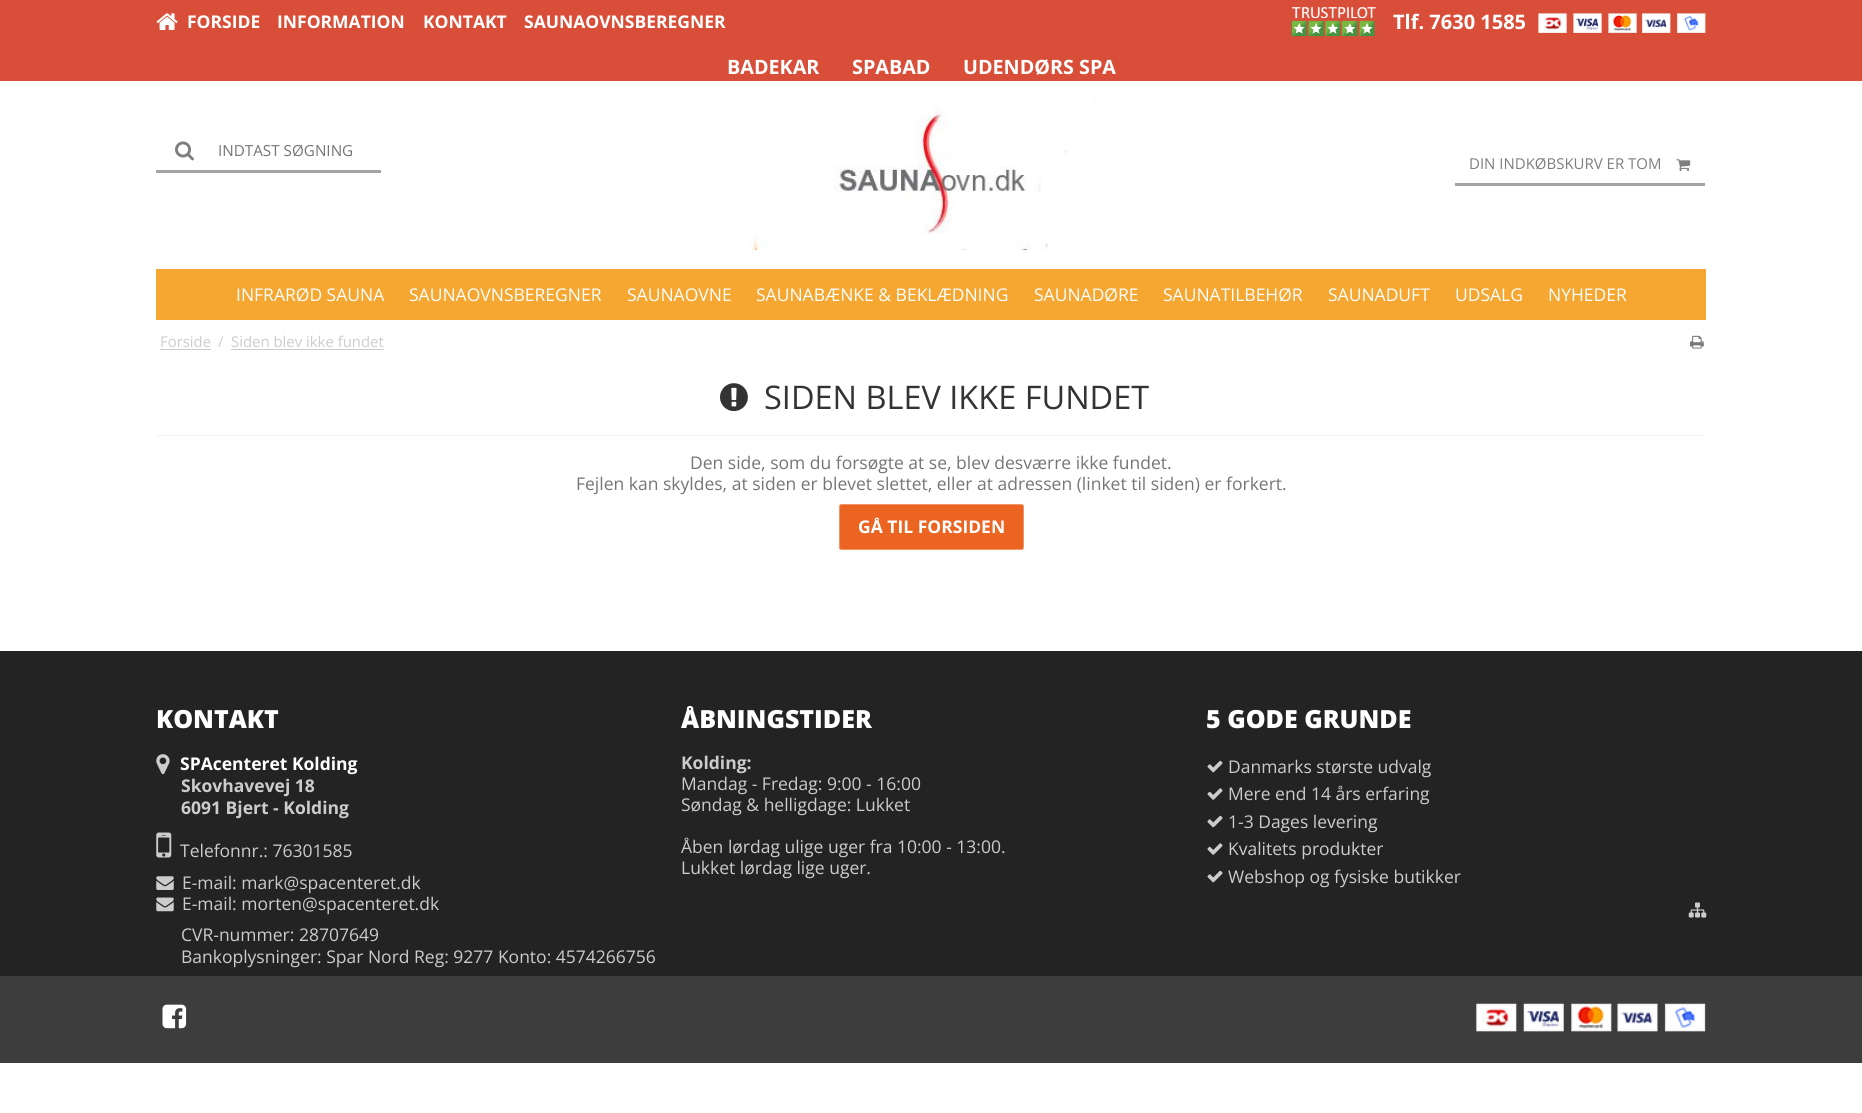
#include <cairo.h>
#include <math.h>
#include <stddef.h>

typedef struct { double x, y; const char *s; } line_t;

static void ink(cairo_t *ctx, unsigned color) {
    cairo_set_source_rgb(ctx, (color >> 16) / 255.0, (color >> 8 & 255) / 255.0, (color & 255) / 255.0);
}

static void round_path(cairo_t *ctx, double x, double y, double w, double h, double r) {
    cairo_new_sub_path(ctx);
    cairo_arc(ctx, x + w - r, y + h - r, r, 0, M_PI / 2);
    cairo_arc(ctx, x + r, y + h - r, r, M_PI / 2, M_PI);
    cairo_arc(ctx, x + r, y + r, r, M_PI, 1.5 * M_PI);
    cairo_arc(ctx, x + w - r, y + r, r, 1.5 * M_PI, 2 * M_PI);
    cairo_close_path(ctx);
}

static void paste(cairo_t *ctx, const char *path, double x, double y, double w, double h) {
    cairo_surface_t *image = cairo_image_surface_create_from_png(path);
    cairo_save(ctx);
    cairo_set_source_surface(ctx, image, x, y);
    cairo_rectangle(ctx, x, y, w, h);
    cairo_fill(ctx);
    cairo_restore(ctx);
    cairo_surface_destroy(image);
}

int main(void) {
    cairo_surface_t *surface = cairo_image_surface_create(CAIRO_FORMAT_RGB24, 1862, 1113);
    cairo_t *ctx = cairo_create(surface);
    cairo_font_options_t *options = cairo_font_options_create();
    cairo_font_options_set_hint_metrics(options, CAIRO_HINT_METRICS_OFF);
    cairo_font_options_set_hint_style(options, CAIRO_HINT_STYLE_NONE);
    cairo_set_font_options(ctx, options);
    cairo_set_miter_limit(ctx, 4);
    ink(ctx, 0xFFFFFF);
    cairo_paint(ctx);
    ink(ctx, 0xD94E38);
    cairo_rectangle(ctx, 0, 0, 1862, 81);
    cairo_fill(ctx);
    paste(ctx, "media/1.png", 156, 13, 22, 17);
    cairo_select_font_face(ctx, "Open Sans", CAIRO_FONT_SLANT_NORMAL, CAIRO_FONT_WEIGHT_BOLD);
    cairo_set_font_size(ctx, 17.5);
    ink(ctx, 0xFFFFFF);
    {
        static const line_t items[] = {
            {187, 28, "FORSIDE"},
            {277, 28, "INFORMATION"},
            {423, 28, "KONTAKT"},
            {524, 28, "SAUNAOVNSBEREGNER"},
        };
        for (size_t i = 0; i < sizeof items / sizeof *items; i++) {
            cairo_move_to(ctx, items[i].x, items[i].y);
            cairo_show_text(ctx, items[i].s);
        }
    }
    cairo_set_font_size(ctx, 19.75);
    {
        static const line_t items[] = {
            {727, 74, "BADEKAR"},
            {852, 74, "SPABAD"},
            {963, 74, "UDENDØRS SPA"},
        };
        for (size_t i = 0; i < sizeof items / sizeof *items; i++) {
            cairo_move_to(ctx, items[i].x, items[i].y);
            cairo_show_text(ctx, items[i].s);
        }
    }
    paste(ctx, "media/2.png", 1291, 7, 85, 30);
    cairo_set_font_size(ctx, 20);
    cairo_move_to(ctx, 1393, 29);
    cairo_show_text(ctx, "Tlf. 7630 1585");
    paste(ctx, "media/3.png", 1538, 13, 29, 20);
    paste(ctx, "media/4.png", 1573, 13, 29, 20);
    paste(ctx, "media/5.png", 1608, 13, 29, 20);
    paste(ctx, "media/6.png", 1642, 13, 29, 20);
    paste(ctx, "media/7.png", 1677, 13, 29, 20);
    ink(ctx, 0xA4A4A4);
    cairo_rectangle(ctx, 156, 170, 225, 3);
    cairo_fill(ctx);
    paste(ctx, "media/8.png", 175, 141, 19, 20);
    cairo_select_font_face(ctx, "Open Sans", CAIRO_FONT_SLANT_NORMAL, CAIRO_FONT_WEIGHT_NORMAL);
    cairo_set_font_size(ctx, 15.25);
    ink(ctx, 0x757575);
    cairo_move_to(ctx, 218, 156);
    cairo_show_text(ctx, "INDTAST SØGNING");
    paste(ctx, "media/9.png", 750, 100, 348, 150);
    ink(ctx, 0xA4A4A4);
    cairo_rectangle(ctx, 1455, 183, 250, 3);
    cairo_fill(ctx);
    cairo_set_font_size(ctx, 15);
    ink(ctx, 0x7E7E7E);
    cairo_move_to(ctx, 1469, 169);
    cairo_show_text(ctx, "DIN INDKØBSKURV ER TOM");
    paste(ctx, "media/10.png", 1676, 159, 15, 12);
    ink(ctx, 0xF5A731);
    cairo_rectangle(ctx, 156, 269, 1550, 51);
    cairo_fill(ctx);
    cairo_set_font_size(ctx, 17.5);
    ink(ctx, 0xFFFFFF);
    {
        static const line_t items[] = {
            {236, 301, "INFRARØD SAUNA"},
            {409, 301, "SAUNAOVNSBEREGNER"},
            {627, 301, "SAUNAOVNE"},
            {756, 301, "SAUNABÆNKE & BEKLÆDNING"},
            {1034, 301, "SAUNADØRE"},
            {1163, 301, "SAUNATILBEHØR"},
            {1328, 301, "SAUNADUFT"},
            {1455, 301, "UDSALG"},
            {1548, 301, "NYHEDER"},
        };
        for (size_t i = 0; i < sizeof items / sizeof *items; i++) {
            cairo_move_to(ctx, items[i].x, items[i].y);
            cairo_show_text(ctx, items[i].s);
        }
    }
    cairo_set_font_size(ctx, 14.9);
    ink(ctx, 0xCCCCCC);
    cairo_move_to(ctx, 160, 347);
    cairo_show_text(ctx, "Forside");
    cairo_rectangle(ctx, 160, 349, 51, 1);
    cairo_fill(ctx);
    cairo_move_to(ctx, 218, 347);
    cairo_show_text(ctx, "/");
    cairo_move_to(ctx, 231, 347);
    cairo_show_text(ctx, "Siden blev ikke fundet");
    cairo_rectangle(ctx, 231, 349, 153, 1);
    cairo_fill(ctx);
    paste(ctx, "media/11.png", 1690, 335, 14, 14);
    ink(ctx, 0xF2F2F2);
    cairo_rectangle(ctx, 156, 435, 1550, 1);
    cairo_fill(ctx);
    paste(ctx, "media/12.png", 720, 383, 28, 29);
    cairo_set_font_size(ctx, 32.5);
    ink(ctx, 0x333333);
    cairo_move_to(ctx, 764, 409);
    cairo_show_text(ctx, "SIDEN BLEV IKKE FUNDET");
    cairo_set_font_size(ctx, 17.5);
    ink(ctx, 0x757575);
    cairo_move_to(ctx, 690, 469);
    cairo_show_text(ctx, "Den side, som du forsøgte at se, blev desværre ikke fundet.");
    cairo_move_to(ctx, 576, 490);
    cairo_show_text(ctx, "Fejlen kan skyldes, at siden er blevet slettet, eller at adressen (linket til siden) er forkert.");
    ink(ctx, 0xEB6421);
    round_path(ctx, 839.5, 504.5, 184, 45, 2);
    cairo_fill_preserve(ctx);
    ink(ctx, 0xF19567);
    cairo_set_line_width(ctx, 1);
    cairo_stroke(ctx);
    cairo_select_font_face(ctx, "Open Sans", CAIRO_FONT_SLANT_NORMAL, CAIRO_FONT_WEIGHT_BOLD);
    ink(ctx, 0xFFFFFF);
    cairo_move_to(ctx, 858, 533);
    cairo_show_text(ctx, "GÅ TIL FORSIDEN");
    ink(ctx, 0x232323);
    cairo_rectangle(ctx, 0, 651, 1862, 325);
    cairo_fill(ctx);
    cairo_select_font_face(ctx, "Open Sans ExtraBold", CAIRO_FONT_SLANT_NORMAL, CAIRO_FONT_WEIGHT_NORMAL);
    cairo_set_font_size(ctx, 25);
    ink(ctx, 0xFFFFFF);
    cairo_move_to(ctx, 156, 728);
    cairo_show_text(ctx, "KONTAKT");
    paste(ctx, "media/13.png", 156, 754, 14, 21);
    cairo_select_font_face(ctx, "Open Sans", CAIRO_FONT_SLANT_NORMAL, CAIRO_FONT_WEIGHT_BOLD);
    cairo_set_font_size(ctx, 17.5);
    cairo_move_to(ctx, 180, 770);
    cairo_show_text(ctx, "SPAcenteret Kolding");
    ink(ctx, 0xCCCCCC);
    cairo_move_to(ctx, 181, 792);
    cairo_show_text(ctx, "Skovhavevej 18");
    cairo_move_to(ctx, 181, 814);
    cairo_show_text(ctx, "6091 Bjert - Kolding");
    paste(ctx, "media/14.png", 156, 832, 16, 26);
    cairo_select_font_face(ctx, "Open Sans", CAIRO_FONT_SLANT_NORMAL, CAIRO_FONT_WEIGHT_NORMAL);
    cairo_move_to(ctx, 180, 857);
    cairo_show_text(ctx, "Telefonnr.: 76301585");
    paste(ctx, "media/15.png", 156, 876, 18, 14);
    cairo_move_to(ctx, 182, 889);
    cairo_show_text(ctx, "E-mail: mark@spacenteret.dk");
    paste(ctx, "media/16.png", 156, 897, 18, 15);
    {
        static const line_t items[] = {
            {182, 910, "E-mail: morten@spacenteret.dk"},
            {181, 941, "CVR-nummer: 28707649"},
            {181, 963, "Bankoplysninger: Spar Nord Reg: 9277 Konto: 4574266756"},
        };
        for (size_t i = 0; i < sizeof items / sizeof *items; i++) {
            cairo_move_to(ctx, items[i].x, items[i].y);
            cairo_show_text(ctx, items[i].s);
        }
    }
    cairo_select_font_face(ctx, "Open Sans ExtraBold", CAIRO_FONT_SLANT_NORMAL, CAIRO_FONT_WEIGHT_NORMAL);
    cairo_set_font_size(ctx, 25);
    ink(ctx, 0xFFFFFF);
    cairo_move_to(ctx, 681, 728);
    cairo_show_text(ctx, "ÅBNINGSTIDER");
    cairo_select_font_face(ctx, "Open Sans", CAIRO_FONT_SLANT_NORMAL, CAIRO_FONT_WEIGHT_BOLD);
    cairo_set_font_size(ctx, 17.5);
    ink(ctx, 0xCCCCCC);
    cairo_move_to(ctx, 681, 769);
    cairo_show_text(ctx, "Kolding:");
    cairo_select_font_face(ctx, "Open Sans", CAIRO_FONT_SLANT_NORMAL, CAIRO_FONT_WEIGHT_NORMAL);
    {
        static const line_t items[] = {
            {681, 790, "Mandag - Fredag: 9:00 - 16:00"},
            {681, 811, "Søndag & helligdage: Lukket"},
            {681, 853, "Åben lørdag ulige uger fra 10:00 - 13:00."},
            {681, 874, "Lukket lørdag lige uger."},
        };
        for (size_t i = 0; i < sizeof items / sizeof *items; i++) {
            cairo_move_to(ctx, items[i].x, items[i].y);
            cairo_show_text(ctx, items[i].s);
        }
    }
    cairo_select_font_face(ctx, "Open Sans ExtraBold", CAIRO_FONT_SLANT_NORMAL, CAIRO_FONT_WEIGHT_NORMAL);
    cairo_set_font_size(ctx, 25);
    ink(ctx, 0xFFFFFF);
    cairo_move_to(ctx, 1206, 728);
    cairo_show_text(ctx, "5 GODE GRUNDE");
    paste(ctx, "media/17.png", 1207, 760, 16, 13);
    cairo_select_font_face(ctx, "Open Sans", CAIRO_FONT_SLANT_NORMAL, CAIRO_FONT_WEIGHT_NORMAL);
    cairo_set_font_size(ctx, 17.5);
    ink(ctx, 0xCCCCCC);
    cairo_move_to(ctx, 1228, 773);
    cairo_show_text(ctx, "Danmarks største udvalg");
    paste(ctx, "media/18.png", 1207, 788, 16, 12);
    cairo_move_to(ctx, 1228, 800);
    cairo_show_text(ctx, "Mere end 14 års erfaring");
    paste(ctx, "media/17.png", 1207, 815, 16, 13);
    cairo_move_to(ctx, 1228, 828);
    cairo_show_text(ctx, "1-3 Dages levering");
    paste(ctx, "media/18.png", 1207, 843, 16, 12);
    cairo_move_to(ctx, 1228, 855);
    cairo_show_text(ctx, "Kvalitets produkter");
    paste(ctx, "media/17.png", 1207, 870, 16, 13);
    cairo_move_to(ctx, 1228, 883);
    cairo_show_text(ctx, "Webshop og fysiske butikker");
    paste(ctx, "media/19.png", 1688, 902, 19, 16);
    ink(ctx, 0x3D3D3D);
    cairo_rectangle(ctx, 0, 976, 1862, 87);
    cairo_fill(ctx);
    paste(ctx, "media/20.png", 162, 1004, 25, 25);
    paste(ctx, "media/21.png", 1476, 1003, 41, 29);
    paste(ctx, "media/22.png", 1523, 1003, 41, 29);
    paste(ctx, "media/23.png", 1571, 1003, 41, 29);
    paste(ctx, "media/24.png", 1617, 1003, 41, 29);
    paste(ctx, "media/25.png", 1664, 1003, 42, 29);
    cairo_surface_write_to_png(surface, "image.png");
    cairo_font_options_destroy(options);
    cairo_destroy(ctx);
    cairo_surface_destroy(surface);
    return 0;
}
